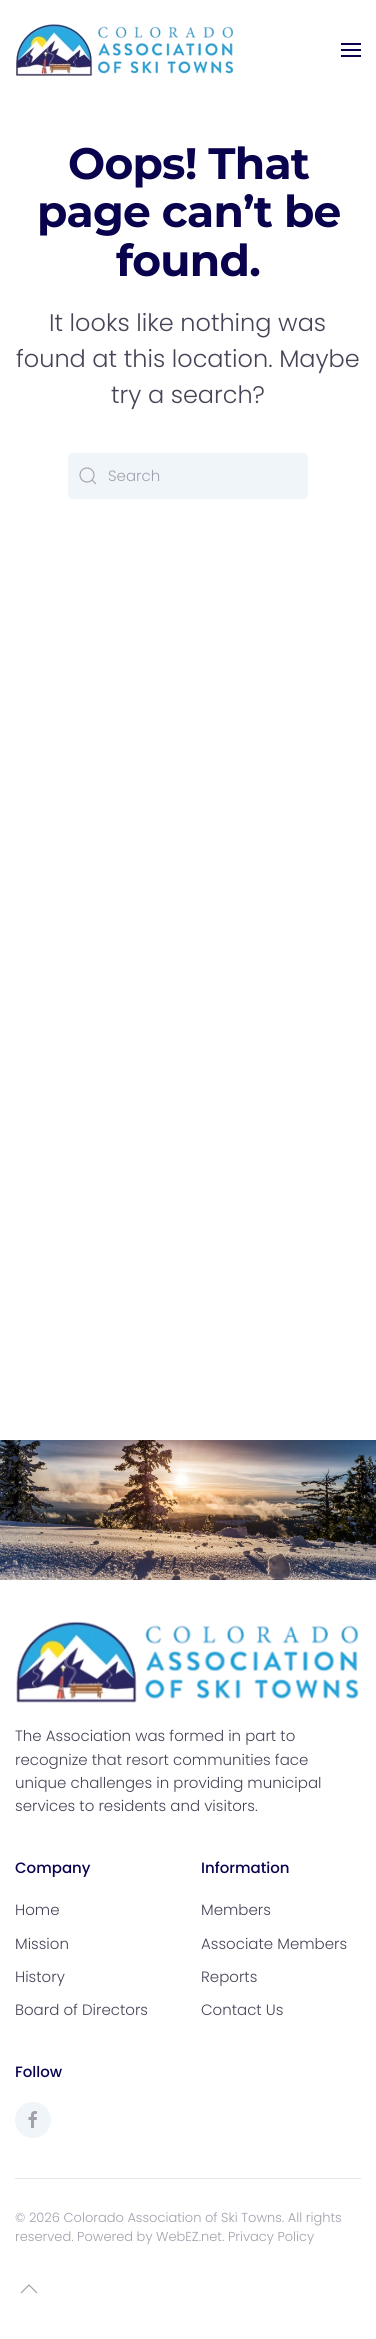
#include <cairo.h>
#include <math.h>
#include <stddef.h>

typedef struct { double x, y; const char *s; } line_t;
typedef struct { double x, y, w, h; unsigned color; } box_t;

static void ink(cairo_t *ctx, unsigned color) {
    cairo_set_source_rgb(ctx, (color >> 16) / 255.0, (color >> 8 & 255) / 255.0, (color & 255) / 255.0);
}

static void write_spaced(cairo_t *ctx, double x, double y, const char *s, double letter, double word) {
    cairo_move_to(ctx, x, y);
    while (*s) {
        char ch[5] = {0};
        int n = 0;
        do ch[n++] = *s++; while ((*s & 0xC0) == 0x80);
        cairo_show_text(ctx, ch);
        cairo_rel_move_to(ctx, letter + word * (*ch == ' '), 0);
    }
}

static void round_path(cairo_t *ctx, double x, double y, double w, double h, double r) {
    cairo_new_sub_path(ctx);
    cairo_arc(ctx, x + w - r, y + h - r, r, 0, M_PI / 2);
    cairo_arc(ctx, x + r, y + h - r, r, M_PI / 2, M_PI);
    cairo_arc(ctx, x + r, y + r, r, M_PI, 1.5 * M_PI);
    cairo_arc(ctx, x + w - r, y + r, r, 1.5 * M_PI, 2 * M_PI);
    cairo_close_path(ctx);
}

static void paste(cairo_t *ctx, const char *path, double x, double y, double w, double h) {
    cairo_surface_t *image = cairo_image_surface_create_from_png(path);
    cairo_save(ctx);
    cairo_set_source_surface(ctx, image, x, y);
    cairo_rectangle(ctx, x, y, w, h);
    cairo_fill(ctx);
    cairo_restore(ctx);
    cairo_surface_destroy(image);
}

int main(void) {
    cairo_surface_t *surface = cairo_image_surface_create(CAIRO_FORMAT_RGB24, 376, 2339);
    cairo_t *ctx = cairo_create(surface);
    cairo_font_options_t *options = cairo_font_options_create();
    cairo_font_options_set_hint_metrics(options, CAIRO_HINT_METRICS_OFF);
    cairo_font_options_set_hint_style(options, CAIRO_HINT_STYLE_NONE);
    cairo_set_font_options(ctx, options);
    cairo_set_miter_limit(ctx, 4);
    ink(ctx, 0xFFFFFF);
    cairo_paint(ctx);
    paste(ctx, "media/1.png", 16, 24, 218, 52);
    {
        static const box_t items[] = {
            {341, 43, 20, 2, 0x09034E},
            {341, 49, 20, 2, 0x09034E},
            {341, 55, 20, 2, 0x09034E},
        };
        for (size_t i = 0; i < sizeof items / sizeof *items; i++) {
            ink(ctx, items[i].color);
            cairo_rectangle(ctx, items[i].x, items[i].y, items[i].w, items[i].h);
            cairo_fill(ctx);
        }
    }
    cairo_select_font_face(ctx, "Montserrat Thin", CAIRO_FONT_SLANT_NORMAL, CAIRO_FONT_WEIGHT_NORMAL);
    cairo_set_font_size(ctx, 44);
    {
        static const line_t items[] = {
            {68, 179, "Oops! That"},
            {37, 227, "page can’t be"},
            {116, 276, "found."},
        };
        for (size_t i = 0; i < sizeof items / sizeof *items; i++) {
            write_spaced(ctx, items[i].x, items[i].y, items[i].s, -0.75, 0);
        }
    }
    cairo_select_font_face(ctx, "Poppins Light", CAIRO_FONT_SLANT_NORMAL, CAIRO_FONT_WEIGHT_NORMAL);
    cairo_set_font_size(ctx, 24);
    ink(ctx, 0x464457);
    {
        static const line_t items[] = {
            {49, 331, "It looks like nothing was"},
            {16, 367, "found at this location. Maybe"},
            {111, 403, "try a search?"},
        };
        for (size_t i = 0; i < sizeof items / sizeof *items; i++) {
            cairo_move_to(ctx, items[i].x, items[i].y);
            cairo_show_text(ctx, items[i].s);
        }
    }
    ink(ctx, 0xF0F5FA);
    round_path(ctx, 68, 453, 240, 46, 4);
    cairo_fill(ctx);
    cairo_arc(ctx, 87, 475, 7, 0, 2 * M_PI);
    ink(ctx, 0xA1A0AD);
    cairo_set_line_width(ctx, 1.1);
    cairo_stroke(ctx);
    cairo_new_path(ctx);
    cairo_move_to(ctx, 92, 480);
    cairo_line_to(ctx, 96, 484);
    cairo_close_path(ctx);
    cairo_stroke(ctx);
    cairo_set_font_size(ctx, 15);
    cairo_move_to(ctx, 108, 481);
    cairo_show_text(ctx, "Search");
    paste(ctx, "media/2.png", 0, 1440, 376, 140);
    paste(ctx, "media/3.png", 16, 1621, 343, 82);
    ink(ctx, 0x464457);
    {
        static const line_t items[] = {
            {15, 1741, "The Association was formed in part to"},
            {15, 1765, "recognize that resort communities face"},
            {15, 1788, "unique challenges in providing municipal"},
            {15, 1811, "services to residents and visitors."},
        };
        for (size_t i = 0; i < sizeof items / sizeof *items; i++) {
            cairo_move_to(ctx, items[i].x, items[i].y);
            cairo_show_text(ctx, items[i].s);
        }
    }
    cairo_select_font_face(ctx, "Poppins Medium", CAIRO_FONT_SLANT_NORMAL, CAIRO_FONT_WEIGHT_NORMAL);
    ink(ctx, 0x09034E);
    cairo_move_to(ctx, 15, 1873);
    cairo_show_text(ctx, "Company");
    cairo_select_font_face(ctx, "Poppins Light", CAIRO_FONT_SLANT_NORMAL, CAIRO_FONT_WEIGHT_NORMAL);
    ink(ctx, 0x464457);
    {
        static const line_t items[] = {
            {15, 1915, "Home"},
            {15, 1949, "Mission"},
            {15, 1982, "History"},
            {15, 2015, "Board of Directors"},
        };
        for (size_t i = 0; i < sizeof items / sizeof *items; i++) {
            cairo_move_to(ctx, items[i].x, items[i].y);
            cairo_show_text(ctx, items[i].s);
        }
    }
    cairo_select_font_face(ctx, "Poppins Medium", CAIRO_FONT_SLANT_NORMAL, CAIRO_FONT_WEIGHT_NORMAL);
    ink(ctx, 0x09034E);
    cairo_move_to(ctx, 201, 1873);
    cairo_show_text(ctx, "Information");
    cairo_select_font_face(ctx, "Poppins Light", CAIRO_FONT_SLANT_NORMAL, CAIRO_FONT_WEIGHT_NORMAL);
    ink(ctx, 0x464457);
    {
        static const line_t items[] = {
            {201, 1915, "Members"},
            {201, 1949, "Associate Members"},
            {201, 1982, "Reports"},
            {201, 2015, "Contact Us"},
        };
        for (size_t i = 0; i < sizeof items / sizeof *items; i++) {
            cairo_move_to(ctx, items[i].x, items[i].y);
            cairo_show_text(ctx, items[i].s);
        }
    }
    cairo_select_font_face(ctx, "Poppins Medium", CAIRO_FONT_SLANT_NORMAL, CAIRO_FONT_WEIGHT_NORMAL);
    ink(ctx, 0x09034E);
    cairo_move_to(ctx, 15, 2077);
    cairo_show_text(ctx, "Follow");
    ink(ctx, 0xF0F5FA);
    cairo_new_path(ctx);
    cairo_arc(ctx, 33, 2120, 18, 0, 2 * M_PI);
    cairo_fill(ctx);
    paste(ctx, "media/4.png", 28, 2111, 9, 17);
    ink(ctx, 0xE6E6E6);
    cairo_rectangle(ctx, 15, 2178, 346, 1);
    cairo_fill(ctx);
    cairo_select_font_face(ctx, "Poppins Light", CAIRO_FONT_SLANT_NORMAL, CAIRO_FONT_WEIGHT_NORMAL);
    cairo_set_font_size(ctx, 13);
    ink(ctx, 0xA1A0AD);
    cairo_move_to(ctx, 15, 2222);
    cairo_show_text(ctx, "© 2026 Colorado Association of Ski Towns. All rights");
    cairo_move_to(ctx, 15, 2241);
    cairo_show_text(ctx, "reserved. Powered by WebEZ.net. Privacy Policy");
    cairo_new_path(ctx);
    cairo_move_to(ctx, 21, 2293);
    cairo_line_to(ctx, 29, 2285);
    cairo_line_to(ctx, 37, 2293);
    cairo_set_line_width(ctx, 1.2);
    cairo_stroke(ctx);
    cairo_surface_write_to_png(surface, "image.png");
    cairo_font_options_destroy(options);
    cairo_destroy(ctx);
    cairo_surface_destroy(surface);
    return 0;
}
